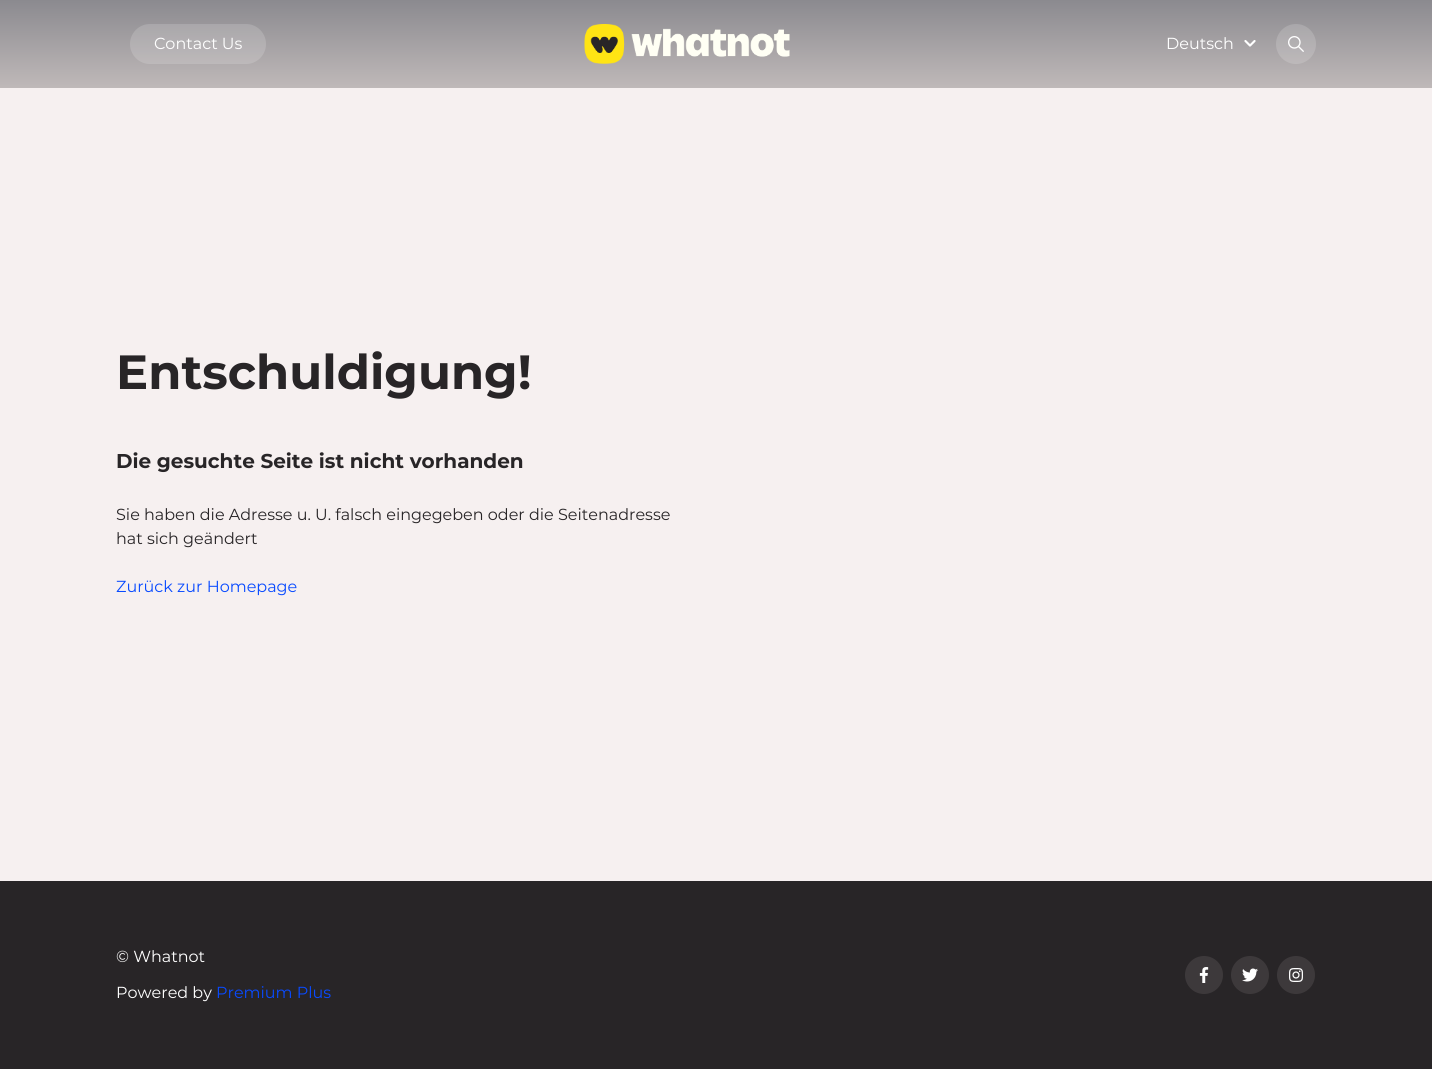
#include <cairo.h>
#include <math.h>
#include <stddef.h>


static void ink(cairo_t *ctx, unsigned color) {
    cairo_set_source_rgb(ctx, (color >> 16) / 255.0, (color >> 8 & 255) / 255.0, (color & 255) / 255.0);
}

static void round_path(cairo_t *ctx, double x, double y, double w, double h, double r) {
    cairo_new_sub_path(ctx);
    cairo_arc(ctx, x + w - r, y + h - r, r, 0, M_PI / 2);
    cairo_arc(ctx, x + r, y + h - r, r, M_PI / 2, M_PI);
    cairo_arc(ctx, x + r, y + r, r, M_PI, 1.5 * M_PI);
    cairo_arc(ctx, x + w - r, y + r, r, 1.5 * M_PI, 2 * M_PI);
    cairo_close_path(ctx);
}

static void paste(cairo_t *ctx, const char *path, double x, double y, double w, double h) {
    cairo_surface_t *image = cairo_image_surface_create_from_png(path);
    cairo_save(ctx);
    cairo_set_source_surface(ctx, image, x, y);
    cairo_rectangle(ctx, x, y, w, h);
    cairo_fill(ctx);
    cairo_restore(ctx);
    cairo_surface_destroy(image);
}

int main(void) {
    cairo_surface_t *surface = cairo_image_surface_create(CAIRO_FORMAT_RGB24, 1432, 1069);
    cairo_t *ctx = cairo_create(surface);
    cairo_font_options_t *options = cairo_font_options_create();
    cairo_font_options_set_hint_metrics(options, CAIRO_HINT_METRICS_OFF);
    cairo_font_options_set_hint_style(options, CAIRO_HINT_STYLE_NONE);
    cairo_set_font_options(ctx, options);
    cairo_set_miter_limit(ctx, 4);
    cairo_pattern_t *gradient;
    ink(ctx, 0xF6F0F0);
    cairo_paint(ctx);
    gradient = cairo_pattern_create_linear(716, 0, 716, 88);
    cairo_pattern_add_color_stop_rgba(gradient, 0, 0.545, 0.541, 0.561, 1);
    cairo_pattern_add_color_stop_rgba(gradient, 1, 0.749, 0.725, 0.725, 1);
    cairo_set_source(ctx, gradient);
    cairo_pattern_destroy(gradient);
    cairo_rectangle(ctx, 0, 0, 1432, 88);
    cairo_fill(ctx);
    cairo_set_source_rgba(ctx, 1, 1, 1, 0.16);
    round_path(ctx, 130, 24, 136, 40, 20);
    cairo_fill(ctx);
    cairo_select_font_face(ctx, "Montserrat", CAIRO_FONT_SLANT_NORMAL, CAIRO_FONT_WEIGHT_NORMAL);
    cairo_set_font_size(ctx, 16);
    ink(ctx, 0xFFFFFF);
    cairo_move_to(ctx, 154, 49);
    cairo_show_text(ctx, "Contact Us");
    paste(ctx, "media/1.png", 584, 24, 206, 40);
    cairo_move_to(ctx, 1166, 49);
    cairo_show_text(ctx, "Deutsch");
    paste(ctx, "media/2.png", 1244, 40, 12, 7);
    cairo_set_source_rgba(ctx, 1, 1, 1, 0.16);
    cairo_arc(ctx, 1296, 44, 20, 0, 2 * M_PI);
    cairo_fill(ctx);
    paste(ctx, "media/3.png", 1288, 36, 16, 16);
    cairo_select_font_face(ctx, "Montserrat", CAIRO_FONT_SLANT_NORMAL, CAIRO_FONT_WEIGHT_BOLD);
    cairo_set_font_size(ctx, 48);
    ink(ctx, 0x282527);
    cairo_move_to(ctx, 116, 389);
    cairo_show_text(ctx, "Entschuldigung!");
    cairo_set_font_size(ctx, 20);
    cairo_move_to(ctx, 116, 468);
    cairo_show_text(ctx, "Die gesuchte Seite ist nicht vorhanden");
    cairo_select_font_face(ctx, "Montserrat", CAIRO_FONT_SLANT_NORMAL, CAIRO_FONT_WEIGHT_NORMAL);
    cairo_set_font_size(ctx, 16);
    cairo_move_to(ctx, 116, 520);
    cairo_show_text(ctx, "Sie haben die Adresse u. U. falsch eingegeben oder die Seitenadresse");
    cairo_move_to(ctx, 116, 544);
    cairo_show_text(ctx, "hat sich geändert");
    ink(ctx, 0x084AFF);
    cairo_move_to(ctx, 116, 592);
    cairo_show_text(ctx, "Zurück zur Homepage");
    ink(ctx, 0x282527);
    cairo_rectangle(ctx, 0, 881, 1432, 188);
    cairo_fill(ctx);
    ink(ctx, 0xFFFFFF);
    cairo_move_to(ctx, 116, 962);
    cairo_show_text(ctx, "© Whatnot");
    cairo_move_to(ctx, 116, 998);
    cairo_show_text(ctx, "Powered by");
    ink(ctx, 0x084AFF);
    cairo_move_to(ctx, 216, 998);
    cairo_show_text(ctx, "Premium Plus");
    ink(ctx, 0x3D393B);
    cairo_new_path(ctx);
    cairo_arc(ctx, 1204, 975, 19, 0, 2 * M_PI);
    cairo_fill(ctx);
    paste(ctx, "media/4.png", 1199, 967, 10, 16);
    cairo_arc(ctx, 1250, 975, 19, 0, 2 * M_PI);
    cairo_fill(ctx);
    paste(ctx, "media/5.png", 1242, 968, 16, 14);
    cairo_arc(ctx, 1296, 975, 19, 0, 2 * M_PI);
    cairo_fill(ctx);
    paste(ctx, "media/6.png", 1289, 968, 14, 14);
    cairo_surface_write_to_png(surface, "image.png");
    cairo_font_options_destroy(options);
    cairo_destroy(ctx);
    cairo_surface_destroy(surface);
    return 0;
}
